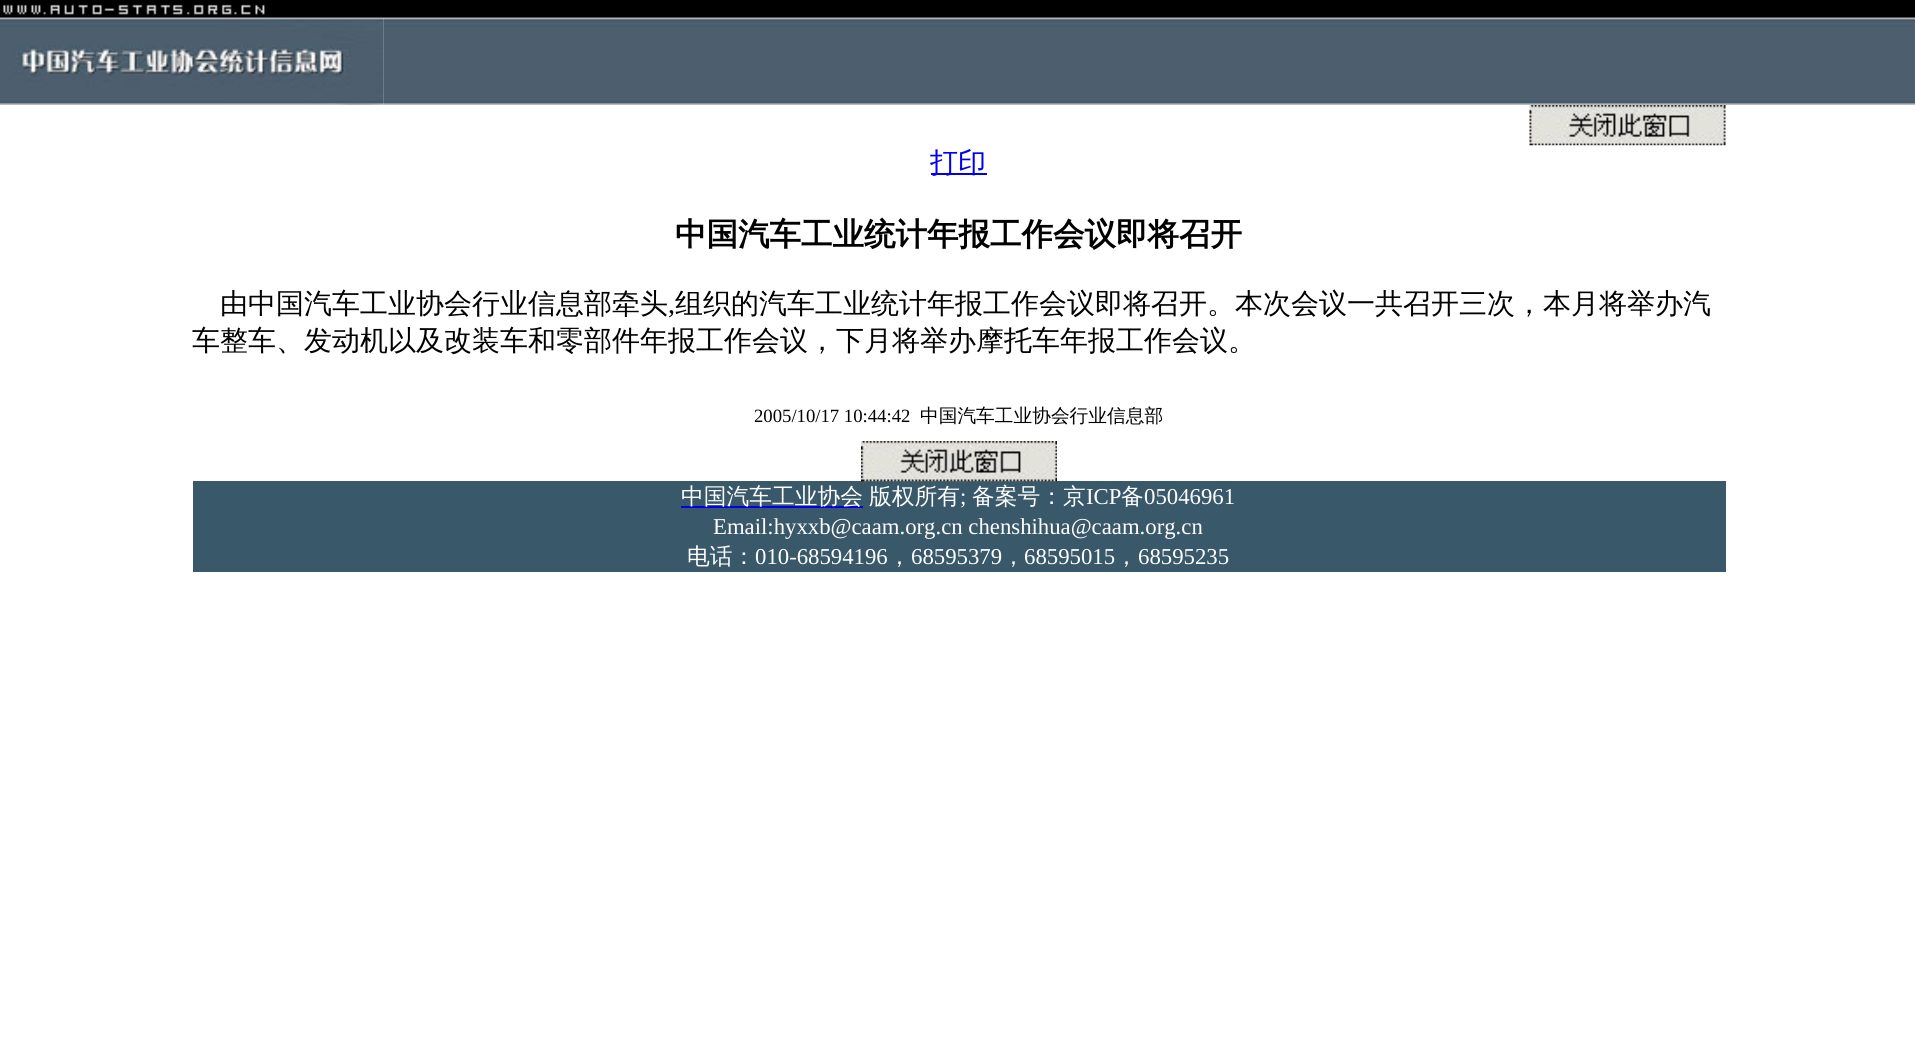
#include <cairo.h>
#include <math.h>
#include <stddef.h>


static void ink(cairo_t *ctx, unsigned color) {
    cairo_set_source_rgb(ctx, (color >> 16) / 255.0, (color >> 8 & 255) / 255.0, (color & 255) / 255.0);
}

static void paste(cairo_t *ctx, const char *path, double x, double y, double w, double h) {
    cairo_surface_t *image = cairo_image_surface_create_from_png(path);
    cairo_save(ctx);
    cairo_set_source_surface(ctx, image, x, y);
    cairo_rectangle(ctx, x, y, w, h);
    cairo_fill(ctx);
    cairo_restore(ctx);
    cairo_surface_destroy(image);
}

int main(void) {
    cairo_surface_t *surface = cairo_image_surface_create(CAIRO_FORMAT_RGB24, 1915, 1039);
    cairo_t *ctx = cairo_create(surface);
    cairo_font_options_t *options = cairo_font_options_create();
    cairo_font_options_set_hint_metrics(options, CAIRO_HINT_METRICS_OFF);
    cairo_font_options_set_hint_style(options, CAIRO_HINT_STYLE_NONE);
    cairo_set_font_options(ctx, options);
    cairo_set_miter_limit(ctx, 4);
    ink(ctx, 0xFFFFFF);
    cairo_paint(ctx);
    ink(ctx, 0x000000);
    cairo_rectangle(ctx, 0, 0, 1915, 18);
    cairo_fill(ctx);
    paste(ctx, "media/1.png", 3, 4, 262, 11);
    paste(ctx, "media/3.png", 383, 17, 1532, 88);
    paste(ctx, "media/2.png", 0, 17, 384, 88);
    paste(ctx, "media/4.png", 1529, 105, 197, 41);
    ink(ctx, 0x0000EE);
    cairo_rectangle(ctx, 931, 173, 56, 2);
    cairo_fill(ctx);
    cairo_select_font_face(ctx, "WenQuanYi Zen Hei Medium", CAIRO_FONT_SLANT_NORMAL, CAIRO_FONT_WEIGHT_NORMAL);
    cairo_set_font_size(ctx, 28);
    cairo_move_to(ctx, 930, 172);
    cairo_show_text(ctx, "打印");
    cairo_select_font_face(ctx, "WenQuanYi Zen Hei", CAIRO_FONT_SLANT_NORMAL, CAIRO_FONT_WEIGHT_BOLD);
    cairo_set_font_size(ctx, 31.5);
    ink(ctx, 0x000000);
    cairo_move_to(ctx, 675, 245);
    cairo_show_text(ctx, "中国汽车工业统计年报工作会议即将召开");
    cairo_select_font_face(ctx, "WenQuanYi Zen Hei Medium", CAIRO_FONT_SLANT_NORMAL, CAIRO_FONT_WEIGHT_NORMAL);
    cairo_set_font_size(ctx, 28);
    cairo_move_to(ctx, 220, 313);
    cairo_show_text(ctx, "由中国汽车工业协会行业信息部牵头");
    cairo_select_font_face(ctx, "Liberation Serif", CAIRO_FONT_SLANT_NORMAL, CAIRO_FONT_WEIGHT_NORMAL);
    cairo_move_to(ctx, 668, 313);
    cairo_show_text(ctx, ",");
    cairo_select_font_face(ctx, "WenQuanYi Zen Hei Medium", CAIRO_FONT_SLANT_NORMAL, CAIRO_FONT_WEIGHT_NORMAL);
    cairo_move_to(ctx, 675, 313);
    cairo_show_text(ctx, "组织的汽车工业统计年报工作会议即将召开。本次会议一共召开三次，本月将举办汽");
    cairo_move_to(ctx, 192, 350);
    cairo_show_text(ctx, "车整车、发动机以及改装车和零部件年报工作会议，下月将举办摩托车年报工作会议。");
    cairo_select_font_face(ctx, "Liberation Serif", CAIRO_FONT_SLANT_NORMAL, CAIRO_FONT_WEIGHT_NORMAL);
    cairo_set_font_size(ctx, 18.7);
    cairo_move_to(ctx, 754, 422);
    cairo_show_text(ctx, "2005/10/17 10:44:42");
    cairo_select_font_face(ctx, "WenQuanYi Zen Hei Medium", CAIRO_FONT_SLANT_NORMAL, CAIRO_FONT_WEIGHT_NORMAL);
    cairo_move_to(ctx, 920, 422);
    cairo_show_text(ctx, "中国汽车工业协会行业信息部");
    ink(ctx, 0x39586A);
    cairo_rectangle(ctx, 193, 481, 1533, 91);
    cairo_fill(ctx);
    paste(ctx, "media/5.png", 861, 441, 196, 41);
    ink(ctx, 0x0000EE);
    cairo_rectangle(ctx, 681, 506, 182, 2);
    cairo_fill(ctx);
    cairo_set_font_size(ctx, 22.75);
    ink(ctx, 0xFFFFFF);
    cairo_move_to(ctx, 681, 504);
    cairo_show_text(ctx, "中国汽车工业协会");
    cairo_move_to(ctx, 869, 504);
    cairo_show_text(ctx, "版权所有");
    cairo_select_font_face(ctx, "Liberation Serif", CAIRO_FONT_SLANT_NORMAL, CAIRO_FONT_WEIGHT_NORMAL);
    cairo_move_to(ctx, 960, 504);
    cairo_show_text(ctx, ";");
    cairo_select_font_face(ctx, "WenQuanYi Zen Hei Medium", CAIRO_FONT_SLANT_NORMAL, CAIRO_FONT_WEIGHT_NORMAL);
    cairo_move_to(ctx, 972, 504);
    cairo_show_text(ctx, "备案号：京");
    cairo_select_font_face(ctx, "Liberation Serif", CAIRO_FONT_SLANT_NORMAL, CAIRO_FONT_WEIGHT_NORMAL);
    cairo_move_to(ctx, 1086, 504);
    cairo_show_text(ctx, "ICP");
    cairo_select_font_face(ctx, "WenQuanYi Zen Hei Medium", CAIRO_FONT_SLANT_NORMAL, CAIRO_FONT_WEIGHT_NORMAL);
    cairo_move_to(ctx, 1121, 504);
    cairo_show_text(ctx, "备");
    cairo_select_font_face(ctx, "Liberation Serif", CAIRO_FONT_SLANT_NORMAL, CAIRO_FONT_WEIGHT_NORMAL);
    cairo_move_to(ctx, 1144, 504);
    cairo_show_text(ctx, "05046961");
    cairo_move_to(ctx, 713, 534);
    cairo_show_text(ctx, "Email:hyxxb@caam.org.cn chenshihua@caam.org.cn");
    cairo_select_font_face(ctx, "WenQuanYi Zen Hei Medium", CAIRO_FONT_SLANT_NORMAL, CAIRO_FONT_WEIGHT_NORMAL);
    cairo_move_to(ctx, 687, 564);
    cairo_show_text(ctx, "电话：");
    cairo_select_font_face(ctx, "Liberation Serif", CAIRO_FONT_SLANT_NORMAL, CAIRO_FONT_WEIGHT_NORMAL);
    cairo_move_to(ctx, 755, 564);
    cairo_show_text(ctx, "010-68594196");
    cairo_select_font_face(ctx, "WenQuanYi Zen Hei Medium", CAIRO_FONT_SLANT_NORMAL, CAIRO_FONT_WEIGHT_NORMAL);
    cairo_move_to(ctx, 888, 564);
    cairo_show_text(ctx, "，");
    cairo_select_font_face(ctx, "Liberation Serif", CAIRO_FONT_SLANT_NORMAL, CAIRO_FONT_WEIGHT_NORMAL);
    cairo_move_to(ctx, 911, 564);
    cairo_show_text(ctx, "68595379");
    cairo_select_font_face(ctx, "WenQuanYi Zen Hei Medium", CAIRO_FONT_SLANT_NORMAL, CAIRO_FONT_WEIGHT_NORMAL);
    cairo_move_to(ctx, 1002, 564);
    cairo_show_text(ctx, "，");
    cairo_select_font_face(ctx, "Liberation Serif", CAIRO_FONT_SLANT_NORMAL, CAIRO_FONT_WEIGHT_NORMAL);
    cairo_move_to(ctx, 1024, 564);
    cairo_show_text(ctx, "68595015");
    cairo_select_font_face(ctx, "WenQuanYi Zen Hei Medium", CAIRO_FONT_SLANT_NORMAL, CAIRO_FONT_WEIGHT_NORMAL);
    cairo_move_to(ctx, 1115, 564);
    cairo_show_text(ctx, "，");
    cairo_select_font_face(ctx, "Liberation Serif", CAIRO_FONT_SLANT_NORMAL, CAIRO_FONT_WEIGHT_NORMAL);
    cairo_move_to(ctx, 1138, 564);
    cairo_show_text(ctx, "68595235");
    cairo_surface_write_to_png(surface, "image.png");
    cairo_font_options_destroy(options);
    cairo_destroy(ctx);
    cairo_surface_destroy(surface);
    return 0;
}
